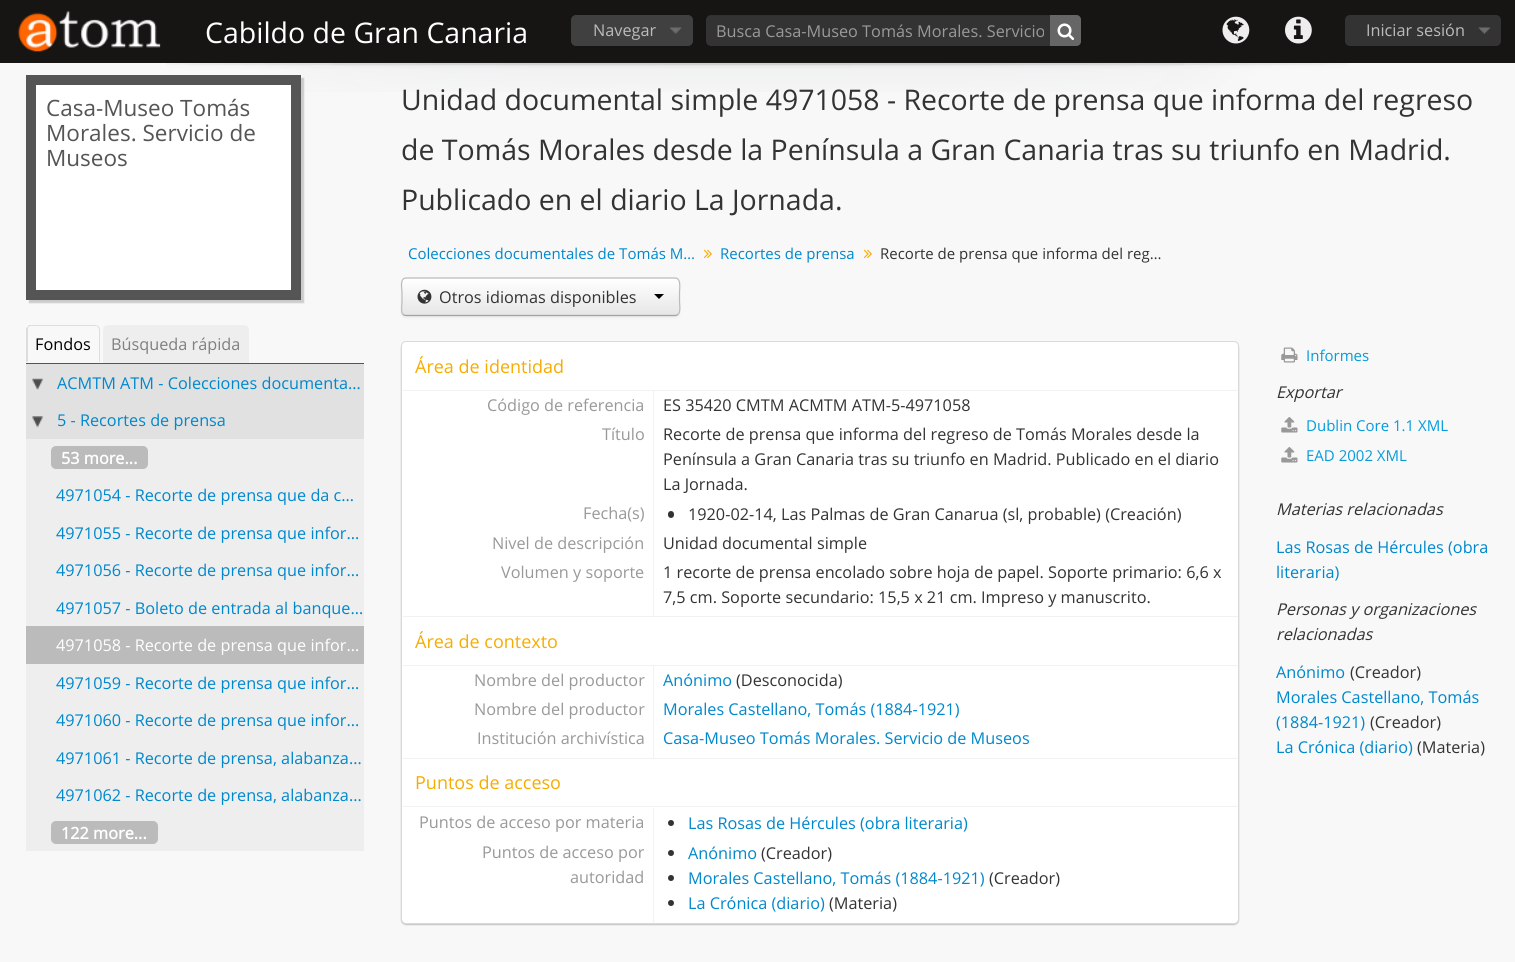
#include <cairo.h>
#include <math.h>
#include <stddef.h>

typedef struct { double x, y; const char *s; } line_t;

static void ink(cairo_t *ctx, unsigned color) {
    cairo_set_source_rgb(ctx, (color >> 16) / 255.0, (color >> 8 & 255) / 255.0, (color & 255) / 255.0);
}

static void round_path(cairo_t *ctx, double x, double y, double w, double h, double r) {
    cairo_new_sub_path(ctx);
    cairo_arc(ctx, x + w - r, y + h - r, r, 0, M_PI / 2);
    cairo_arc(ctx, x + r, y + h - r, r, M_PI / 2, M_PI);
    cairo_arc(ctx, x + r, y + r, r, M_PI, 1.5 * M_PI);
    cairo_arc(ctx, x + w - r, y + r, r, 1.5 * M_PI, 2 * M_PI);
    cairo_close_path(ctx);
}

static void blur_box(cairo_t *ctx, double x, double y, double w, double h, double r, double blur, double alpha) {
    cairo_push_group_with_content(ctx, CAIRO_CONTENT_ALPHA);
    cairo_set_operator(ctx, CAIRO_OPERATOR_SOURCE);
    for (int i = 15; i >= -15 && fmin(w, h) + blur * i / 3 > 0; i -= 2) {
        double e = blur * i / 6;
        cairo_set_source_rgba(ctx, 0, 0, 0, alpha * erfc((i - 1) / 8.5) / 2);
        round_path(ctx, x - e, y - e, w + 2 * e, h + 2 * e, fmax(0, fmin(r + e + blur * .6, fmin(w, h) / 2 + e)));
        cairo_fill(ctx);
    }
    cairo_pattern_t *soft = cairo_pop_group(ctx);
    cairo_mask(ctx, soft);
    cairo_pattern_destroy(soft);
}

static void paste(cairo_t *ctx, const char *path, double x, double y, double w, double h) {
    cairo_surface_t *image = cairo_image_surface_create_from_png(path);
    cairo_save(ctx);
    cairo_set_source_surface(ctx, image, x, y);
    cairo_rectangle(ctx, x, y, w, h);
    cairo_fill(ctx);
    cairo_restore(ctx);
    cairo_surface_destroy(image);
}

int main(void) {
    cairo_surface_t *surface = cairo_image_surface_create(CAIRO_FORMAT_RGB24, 1515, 962);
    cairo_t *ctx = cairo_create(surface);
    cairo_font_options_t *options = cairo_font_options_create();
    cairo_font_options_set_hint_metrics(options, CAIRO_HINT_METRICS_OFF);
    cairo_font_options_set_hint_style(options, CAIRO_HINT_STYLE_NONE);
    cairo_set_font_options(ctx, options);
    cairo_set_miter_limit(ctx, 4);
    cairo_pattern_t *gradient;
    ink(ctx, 0xF8F8F8);
    cairo_paint(ctx);
    ink(ctx, 0x161514);
    cairo_rectangle(ctx, 0, 0, 1515, 63);
    cairo_fill(ctx);
    paste(ctx, "media/1.png", 17, 11, 144, 41);
    cairo_select_font_face(ctx, "Open Sans", CAIRO_FONT_SLANT_NORMAL, CAIRO_FONT_WEIGHT_NORMAL);
    cairo_set_font_size(ctx, 28.45);
    ink(ctx, 0xFFFFFF);
    cairo_move_to(ctx, 205, 43);
    cairo_show_text(ctx, "Cabildo de Gran Canaria");
    ink(ctx, 0x404040);
    round_path(ctx, 571, 15, 122, 31, 5);
    cairo_fill(ctx);
    paste(ctx, "media/2.png", 670, 27, 12, 7);
    cairo_set_font_size(ctx, 16.25);
    ink(ctx, 0xBBBBBB);
    cairo_move_to(ctx, 593, 36);
    cairo_show_text(ctx, "Navegar");
    ink(ctx, 0x333333);
    round_path(ctx, 706, 15, 375, 31, 5);
    cairo_fill(ctx);
    cairo_set_source_rgba(ctx, 0, 0, 0, 0.07);
    cairo_new_path(ctx);
    cairo_move_to(ctx, 711, 16);
    cairo_line_to(ctx, 1076, 16);
    cairo_curve_to(ctx, 1079, 16, 1081, 18, 1081, 21);
    cairo_line_to(ctx, 1081, 20);
    cairo_curve_to(ctx, 1081, 17, 1079, 15, 1076, 15);
    cairo_line_to(ctx, 711, 15);
    cairo_curve_to(ctx, 708, 15, 706, 17, 706, 20);
    cairo_line_to(ctx, 706, 21);
    cairo_curve_to(ctx, 706, 18, 708, 16, 711, 16);
    cairo_close_path(ctx);
    cairo_fill(ctx);
    ink(ctx, 0x999999);
    cairo_move_to(ctx, 716, 37);
    cairo_show_text(ctx, "Busca Casa-Museo Tomás Morales. Servicio");
    ink(ctx, 0x666666);
    cairo_new_path(ctx);
    cairo_move_to(ctx, 1050, 15);
    cairo_line_to(ctx, 1076, 15);
    cairo_curve_to(ctx, 1079, 15, 1081, 17, 1081, 20);
    cairo_line_to(ctx, 1081, 41);
    cairo_curve_to(ctx, 1081, 44, 1079, 46, 1076, 46);
    cairo_line_to(ctx, 1050, 46);
    cairo_close_path(ctx);
    cairo_fill(ctx);
    paste(ctx, "media/3.png", 1057, 23, 18, 17);
    paste(ctx, "media/4.png", 1222, 16, 28, 28);
    paste(ctx, "media/5.png", 1285, 16, 27, 28);
    ink(ctx, 0x333333);
    round_path(ctx, 1345, 15, 156, 31, 5);
    cairo_fill(ctx);
    paste(ctx, "media/6.png", 1478, 27, 13, 7);
    ink(ctx, 0xBBBBBB);
    cairo_move_to(ctx, 1366, 36);
    cairo_show_text(ctx, "Iniciar sesión");
    paste(ctx, "media/7.png", 166, 62, 1183, 30);
    ink(ctx, 0x191919);
    blur_box(ctx, 29, 78, 275, 225, 0, 0.5, 0.2);
    ink(ctx, 0xFFFFFF);
    cairo_rectangle(ctx, 31, 80, 265, 215);
    cairo_fill_preserve(ctx);
    ink(ctx, 0x555555);
    cairo_set_line_width(ctx, 10);
    cairo_stroke(ctx);
    cairo_set_font_size(ctx, 22.5);
    {
        static const line_t items[] = {
            {46, 116, "Casa-Museo Tomás"},
            {46, 141, "Morales. Servicio de"},
            {46, 166, "Museos"},
        };
        for (size_t i = 0; i < sizeof items / sizeof *items; i++) {
            cairo_move_to(ctx, items[i].x, items[i].y);
            cairo_show_text(ctx, items[i].s);
        }
    }
    cairo_rectangle(ctx, 26, 363, 338, 1);
    cairo_fill(ctx);
    ink(ctx, 0xDDDDDD);
    cairo_new_path(ctx);
    cairo_move_to(ctx, 31, 325);
    cairo_curve_to(ctx, 30, 325, 28, 325, 28, 326);
    cairo_line_to(ctx, 29, 327);
    cairo_curve_to(ctx, 29, 327, 30, 326, 31, 326);
    cairo_line_to(ctx, 95, 326);
    cairo_curve_to(ctx, 96, 326, 97, 326, 98, 327);
    cairo_line_to(ctx, 99, 326);
    cairo_curve_to(ctx, 98, 326, 96, 325, 95, 325);
    cairo_close_path(ctx);
    cairo_fill(ctx);
    cairo_new_path(ctx);
    cairo_move_to(ctx, 100, 362);
    cairo_line_to(ctx, 100, 330);
    cairo_curve_to(ctx, 100, 328.5, 99.5, 327, 98.5, 326.5);
    cairo_line_to(ctx, 98, 327);
    cairo_curve_to(ctx, 98.5, 328, 99, 329, 99, 330);
    cairo_line_to(ctx, 99, 361);
    cairo_line_to(ctx, 98.5, 361);
    cairo_line_to(ctx, 99.5, 362);
    cairo_close_path(ctx);
    cairo_fill(ctx);
    cairo_new_path(ctx);
    cairo_move_to(ctx, 26, 328.5);
    cairo_line_to(ctx, 27.5, 326.5);
    cairo_line_to(ctx, 28.5, 327.5);
    cairo_curve_to(ctx, 28, 328, 28, 329, 28, 330);
    cairo_line_to(ctx, 28, 361);
    cairo_line_to(ctx, 27, 362);
    cairo_line_to(ctx, 26, 362);
    cairo_close_path(ctx);
    cairo_fill(ctx);
    cairo_set_font_size(ctx, 16.25);
    ink(ctx, 0x000000);
    cairo_move_to(ctx, 35, 350);
    cairo_show_text(ctx, "Fondos");
    ink(ctx, 0xEEEEEE);
    cairo_new_path(ctx);
    cairo_move_to(ctx, 108, 325);
    cairo_line_to(ctx, 244, 325);
    cairo_curve_to(ctx, 247, 325, 249, 327, 249, 330);
    cairo_line_to(ctx, 249, 363);
    cairo_line_to(ctx, 103, 363);
    cairo_line_to(ctx, 103, 330);
    cairo_curve_to(ctx, 103, 327, 105, 325, 108, 325);
    cairo_close_path(ctx);
    cairo_fill(ctx);
    ink(ctx, 0x808080);
    cairo_move_to(ctx, 111, 350);
    cairo_show_text(ctx, "Búsqueda rápida");
    ink(ctx, 0xEEEEEE);
    cairo_rectangle(ctx, 26, 439, 338, 412);
    cairo_fill(ctx);
    ink(ctx, 0xE1E1E1);
    cairo_rectangle(ctx, 26, 364, 338, 75);
    cairo_fill(ctx);
    paste(ctx, "media/8.png", 32, 378, 12, 12);
    ink(ctx, 0x0088CC);
    cairo_move_to(ctx, 57, 389);
    cairo_show_text(ctx, "ACMTM ATM - Colecciones documenta…");
    paste(ctx, "media/9.png", 32, 416, 12, 12);
    cairo_move_to(ctx, 57, 426);
    cairo_show_text(ctx, "5 - Recortes de prensa");
    ink(ctx, 0xBBBBBB);
    round_path(ctx, 51, 446, 97, 23, 5);
    cairo_fill(ctx);
    cairo_select_font_face(ctx, "Open Sans", CAIRO_FONT_SLANT_NORMAL, CAIRO_FONT_WEIGHT_BOLD);
    ink(ctx, 0xFFFFFF);
    cairo_move_to(ctx, 61, 464);
    cairo_show_text(ctx, "53 more...");
    cairo_select_font_face(ctx, "Open Sans", CAIRO_FONT_SLANT_NORMAL, CAIRO_FONT_WEIGHT_NORMAL);
    ink(ctx, 0x0088CC);
    {
        static const line_t items[] = {
            {56, 501, "4971054 - Recorte de prensa que da c…"},
            {56, 539, "4971055 - Recorte de prensa que infor…"},
            {56, 576, "4971056 - Recorte de prensa que infor…"},
            {56, 614, "4971057 - Boleto de entrada al banque…"},
        };
        for (size_t i = 0; i < sizeof items / sizeof *items; i++) {
            cairo_move_to(ctx, items[i].x, items[i].y);
            cairo_show_text(ctx, items[i].s);
        }
    }
    ink(ctx, 0xBBBBBB);
    cairo_rectangle(ctx, 26, 626, 338, 38);
    cairo_fill(ctx);
    ink(ctx, 0xFFFFFF);
    cairo_move_to(ctx, 56, 651);
    cairo_show_text(ctx, "4971058 - Recorte de prensa que infor…");
    ink(ctx, 0x0088CC);
    {
        static const line_t items[] = {
            {56, 689, "4971059 - Recorte de prensa que infor…"},
            {56, 726, "4971060 - Recorte de prensa que infor…"},
            {56, 764, "4971061 - Recorte de prensa, alabanza…"},
            {56, 801, "4971062 - Recorte de prensa, alabanza…"},
        };
        for (size_t i = 0; i < sizeof items / sizeof *items; i++) {
            cairo_move_to(ctx, items[i].x, items[i].y);
            cairo_show_text(ctx, items[i].s);
        }
    }
    ink(ctx, 0xBBBBBB);
    round_path(ctx, 51, 821, 107, 23, 5);
    cairo_fill(ctx);
    cairo_select_font_face(ctx, "Open Sans", CAIRO_FONT_SLANT_NORMAL, CAIRO_FONT_WEIGHT_BOLD);
    ink(ctx, 0xFFFFFF);
    cairo_move_to(ctx, 61, 839);
    cairo_show_text(ctx, "122 more...");
    cairo_select_font_face(ctx, "Open Sans", CAIRO_FONT_SLANT_NORMAL, CAIRO_FONT_WEIGHT_NORMAL);
    cairo_set_font_size(ctx, 28.45);
    ink(ctx, 0x333333);
    {
        static const line_t items[] = {
            {401, 110, "Unidad documental simple 4971058 - Recorte de prensa que informa del regreso"},
            {401, 160, "de Tomás Morales desde la Península a Gran Canaria tras su triunfo en Madrid."},
            {401, 210, "Publicado en el diario La Jornada."},
        };
        for (size_t i = 0; i < sizeof items / sizeof *items; i++) {
            cairo_move_to(ctx, items[i].x, items[i].y);
            cairo_show_text(ctx, items[i].s);
        }
    }
    cairo_set_font_size(ctx, 15);
    ink(ctx, 0x0088CC);
    cairo_move_to(ctx, 408, 259);
    cairo_show_text(ctx, "Colecciones documentales de Tomás M…");
    paste(ctx, "media/10.png", 703, 249, 9, 10);
    cairo_move_to(ctx, 720, 259);
    cairo_show_text(ctx, "Recortes de prensa");
    paste(ctx, "media/10.png", 863, 249, 9, 10);
    ink(ctx, 0x333333);
    cairo_move_to(ctx, 880, 259);
    cairo_show_text(ctx, "Recorte de prensa que informa del reg…");
    ink(ctx, 0x000000);
    blur_box(ctx, 401, 279, 279, 39, 5, 1, 0.05);
    ink(ctx, 0xF5F5F5);
    round_path(ctx, 401, 278, 279, 38, 5);
    cairo_fill(ctx);
    cairo_save(ctx);
    round_path(ctx, 401, 278, 279, 38, 5);
    cairo_clip(ctx);
    gradient = cairo_pattern_create_linear(541, 279, 541, 315);
    cairo_pattern_add_color_stop_rgba(gradient, 0, 1, 1, 1, 1);
    cairo_pattern_add_color_stop_rgba(gradient, 1, 0.902, 0.902, 0.902, 1);
    cairo_set_source(ctx, gradient);
    cairo_pattern_destroy(gradient);
    cairo_rectangle(ctx, 401, 279, 279, 36);
    cairo_fill(ctx);
    cairo_restore(ctx);
    cairo_new_path(ctx);
    cairo_move_to(ctx, 678, 314.5);
    cairo_curve_to(ctx, 677.5, 315, 676, 315.5, 675, 315.5);
    cairo_line_to(ctx, 406, 315.5);
    cairo_curve_to(ctx, 405, 315.5, 404, 315, 403, 314.5);
    ink(ctx, 0xA2A2A2);
    cairo_set_line_width(ctx, 1.2);
    cairo_stroke(ctx);
    cairo_new_path(ctx);
    cairo_move_to(ctx, 403, 314.5);
    cairo_curve_to(ctx, 400.5, 311.5, 402, 305, 402, 301.5);
    cairo_line_to(ctx, 402, 292);
    cairo_curve_to(ctx, 402, 289, 399.5, 278, 406, 278);
    cairo_line_to(ctx, 675, 278);
    cairo_curve_to(ctx, 681.5, 278, 679.5, 289, 679.5, 292);
    cairo_line_to(ctx, 679.5, 301.5);
    cairo_curve_to(ctx, 679.5, 305, 681, 311.5, 678, 314.5);
    ink(ctx, 0xBBBBBB);
    cairo_stroke(ctx);
    paste(ctx, "media/11.png", 417, 289, 15, 15);
    cairo_set_font_size(ctx, 16.25);
    ink(ctx, 0x333333);
    cairo_move_to(ctx, 439, 303);
    cairo_show_text(ctx, "Otros idiomas disponibles");
    ink(ctx, 0x000000);
    cairo_new_path(ctx);
    cairo_move_to(ctx, 654, 294);
    cairo_line_to(ctx, 664, 294);
    cairo_line_to(ctx, 659, 299);
    cairo_close_path(ctx);
    cairo_fill(ctx);
    ink(ctx, 0x000000);
    blur_box(ctx, 401, 343, 838, 582, 5, 0.5, 0.2);
    ink(ctx, 0xFFFFFF);
    round_path(ctx, 401.5, 341.5, 837, 582, 4.5);
    cairo_fill_preserve(ctx);
    ink(ctx, 0xD9D9D9);
    cairo_set_line_width(ctx, 1);
    cairo_stroke(ctx);
    ink(ctx, 0xF2F2F2);
    cairo_rectangle(ctx, 403, 390, 835, 1);
    cairo_fill(ctx);
    cairo_set_font_size(ctx, 18);
    ink(ctx, 0xF6AC00);
    cairo_move_to(ctx, 415, 373);
    cairo_show_text(ctx, "Área de identidad");
    ink(ctx, 0xF2F2F2);
    cairo_rectangle(ctx, 653, 391, 1, 225);
    cairo_fill(ctx);
    cairo_set_font_size(ctx, 16.25);
    ink(ctx, 0x999999);
    cairo_move_to(ctx, 487, 411);
    cairo_show_text(ctx, "Código de referencia");
    ink(ctx, 0x333333);
    cairo_move_to(ctx, 663, 411);
    cairo_show_text(ctx, "ES 35420 CMTM ACMTM ATM-5-4971058");
    ink(ctx, 0x999999);
    cairo_move_to(ctx, 602, 440);
    cairo_show_text(ctx, "Título");
    ink(ctx, 0x333333);
    {
        static const line_t items[] = {
            {663, 440, "Recorte de prensa que informa del regreso de Tomás Morales desde la"},
            {663, 465, "Península a Gran Canaria tras su triunfo en Madrid. Publicado en el diario"},
            {663, 490, "La Jornada."},
        };
        for (size_t i = 0; i < sizeof items / sizeof *items; i++) {
            cairo_move_to(ctx, items[i].x, items[i].y);
            cairo_show_text(ctx, items[i].s);
        }
    }
    ink(ctx, 0x999999);
    cairo_move_to(ctx, 583, 519);
    cairo_show_text(ctx, "Fecha(s)");
    ink(ctx, 0x333333);
    round_path(ctx, 668, 511, 6, 7, 3);
    cairo_fill(ctx);
    cairo_move_to(ctx, 688, 520);
    cairo_show_text(ctx, "1920-02-14, Las Palmas de Gran Canarua (sl, probable) (Creación)");
    ink(ctx, 0x999999);
    cairo_move_to(ctx, 492, 549);
    cairo_show_text(ctx, "Nivel de descripción");
    ink(ctx, 0x333333);
    cairo_move_to(ctx, 663, 549);
    cairo_show_text(ctx, "Unidad documental simple");
    ink(ctx, 0x999999);
    cairo_move_to(ctx, 501, 578);
    cairo_show_text(ctx, "Volumen y soporte");
    ink(ctx, 0x333333);
    cairo_move_to(ctx, 663, 578);
    cairo_show_text(ctx, "1 recorte de prensa encolado sobre hoja de papel. Soporte primario: 6,6 x");
    cairo_move_to(ctx, 663, 603);
    cairo_show_text(ctx, "7,5 cm. Soporte secundario: 15,5 x 21 cm. Impreso y manuscrito.");
    ink(ctx, 0xF2F2F2);
    cairo_rectangle(ctx, 403, 616, 835, 1);
    cairo_fill(ctx);
    cairo_rectangle(ctx, 403, 665, 835, 1);
    cairo_fill(ctx);
    cairo_set_font_size(ctx, 18);
    ink(ctx, 0xF6AC00);
    cairo_move_to(ctx, 415, 648);
    cairo_show_text(ctx, "Área de contexto");
    ink(ctx, 0xF2F2F2);
    cairo_rectangle(ctx, 653, 666, 1, 92);
    cairo_fill(ctx);
    cairo_set_font_size(ctx, 16.25);
    ink(ctx, 0x999999);
    cairo_move_to(ctx, 474, 686);
    cairo_show_text(ctx, "Nombre del productor");
    ink(ctx, 0x0088CC);
    cairo_move_to(ctx, 663, 686);
    cairo_show_text(ctx, "Anónimo");
    ink(ctx, 0x333333);
    cairo_move_to(ctx, 736, 686);
    cairo_show_text(ctx, "(Desconocida)");
    ink(ctx, 0x999999);
    cairo_move_to(ctx, 474, 715);
    cairo_show_text(ctx, "Nombre del productor");
    ink(ctx, 0x0088CC);
    cairo_move_to(ctx, 663, 715);
    cairo_show_text(ctx, "Morales Castellano, Tomás (1884-1921)");
    ink(ctx, 0x999999);
    cairo_move_to(ctx, 477, 744);
    cairo_show_text(ctx, "Institución archivística");
    ink(ctx, 0x0088CC);
    cairo_move_to(ctx, 663, 744);
    cairo_show_text(ctx, "Casa-Museo Tomás Morales. Servicio de Museos");
    ink(ctx, 0xF2F2F2);
    cairo_rectangle(ctx, 403, 758, 835, 1);
    cairo_fill(ctx);
    cairo_rectangle(ctx, 403, 806, 835, 1);
    cairo_fill(ctx);
    cairo_set_font_size(ctx, 18);
    ink(ctx, 0xF6AC00);
    cairo_move_to(ctx, 415, 789);
    cairo_show_text(ctx, "Puntos de acceso");
    ink(ctx, 0xF2F2F2);
    cairo_rectangle(ctx, 653, 808, 1, 115);
    cairo_fill(ctx);
    cairo_set_font_size(ctx, 16.25);
    ink(ctx, 0x999999);
    cairo_move_to(ctx, 419, 828);
    cairo_show_text(ctx, "Puntos de acceso por materia");
    ink(ctx, 0x333333);
    cairo_new_path(ctx);
    cairo_arc(ctx, 671, 823, 3, 0, 2 * M_PI);
    cairo_fill(ctx);
    ink(ctx, 0x0088CC);
    cairo_move_to(ctx, 688, 829);
    cairo_show_text(ctx, "Las Rosas de Hércules (obra literaria)");
    ink(ctx, 0x999999);
    cairo_move_to(ctx, 482, 858);
    cairo_show_text(ctx, "Puntos de acceso por");
    cairo_move_to(ctx, 570, 883);
    cairo_show_text(ctx, "autoridad");
    ink(ctx, 0x333333);
    cairo_new_path(ctx);
    cairo_arc(ctx, 671, 853, 3, 0, 2 * M_PI);
    cairo_fill(ctx);
    ink(ctx, 0x0088CC);
    cairo_move_to(ctx, 688, 859);
    cairo_show_text(ctx, "Anónimo");
    ink(ctx, 0x333333);
    cairo_move_to(ctx, 761, 859);
    cairo_show_text(ctx, "(Creador)");
    cairo_new_path(ctx);
    cairo_arc(ctx, 671, 878, 3, 0, 2 * M_PI);
    cairo_fill(ctx);
    ink(ctx, 0x0088CC);
    cairo_move_to(ctx, 688, 884);
    cairo_show_text(ctx, "Morales Castellano, Tomás (1884-1921)");
    ink(ctx, 0x333333);
    cairo_move_to(ctx, 989, 884);
    cairo_show_text(ctx, "(Creador)");
    cairo_new_path(ctx);
    cairo_arc(ctx, 671, 903, 3, 0, 2 * M_PI);
    cairo_fill(ctx);
    ink(ctx, 0x0088CC);
    cairo_move_to(ctx, 688, 909);
    cairo_show_text(ctx, "La Crónica (diario)");
    ink(ctx, 0x333333);
    cairo_move_to(ctx, 829, 909);
    cairo_show_text(ctx, "(Materia)");
    paste(ctx, "media/12.png", 1281, 347, 17, 16);
    cairo_set_font_size(ctx, 15);
    ink(ctx, 0x049CDB);
    cairo_move_to(ctx, 1306, 361);
    cairo_show_text(ctx, "Informes");
    cairo_select_font_face(ctx, "Open Sans", CAIRO_FONT_SLANT_ITALIC, CAIRO_FONT_WEIGHT_NORMAL);
    cairo_set_font_size(ctx, 16.25);
    ink(ctx, 0x333333);
    cairo_move_to(ctx, 1276, 398);
    cairo_show_text(ctx, "Exportar");
    paste(ctx, "media/13.png", 1281, 417, 17, 16);
    cairo_select_font_face(ctx, "Open Sans", CAIRO_FONT_SLANT_NORMAL, CAIRO_FONT_WEIGHT_NORMAL);
    cairo_set_font_size(ctx, 15);
    ink(ctx, 0x049CDB);
    cairo_move_to(ctx, 1306, 431);
    cairo_show_text(ctx, "Dublin Core 1.1 XML");
    paste(ctx, "media/13.png", 1281, 447, 17, 16);
    cairo_move_to(ctx, 1306, 461);
    cairo_show_text(ctx, "EAD 2002 XML");
    cairo_select_font_face(ctx, "Open Sans", CAIRO_FONT_SLANT_ITALIC, CAIRO_FONT_WEIGHT_NORMAL);
    cairo_set_font_size(ctx, 16.25);
    ink(ctx, 0x333333);
    cairo_move_to(ctx, 1276, 515);
    cairo_show_text(ctx, "Materias relacionadas");
    cairo_select_font_face(ctx, "Open Sans", CAIRO_FONT_SLANT_NORMAL, CAIRO_FONT_WEIGHT_NORMAL);
    ink(ctx, 0x0088CC);
    cairo_move_to(ctx, 1276, 553);
    cairo_show_text(ctx, "Las Rosas de Hércules (obra");
    cairo_move_to(ctx, 1276, 578);
    cairo_show_text(ctx, "literaria)");
    cairo_select_font_face(ctx, "Open Sans", CAIRO_FONT_SLANT_ITALIC, CAIRO_FONT_WEIGHT_NORMAL);
    ink(ctx, 0x333333);
    cairo_move_to(ctx, 1276, 615);
    cairo_show_text(ctx, "Personas y organizaciones");
    cairo_move_to(ctx, 1276, 640);
    cairo_show_text(ctx, "relacionadas");
    cairo_select_font_face(ctx, "Open Sans", CAIRO_FONT_SLANT_NORMAL, CAIRO_FONT_WEIGHT_NORMAL);
    ink(ctx, 0x0088CC);
    cairo_move_to(ctx, 1276, 678);
    cairo_show_text(ctx, "Anónimo");
    ink(ctx, 0x333333);
    cairo_move_to(ctx, 1350, 678);
    cairo_show_text(ctx, "(Creador)");
    ink(ctx, 0x0088CC);
    cairo_move_to(ctx, 1276, 703);
    cairo_show_text(ctx, "Morales Castellano, Tomás");
    cairo_move_to(ctx, 1276, 728);
    cairo_show_text(ctx, "(1884-1921)");
    ink(ctx, 0x333333);
    cairo_move_to(ctx, 1370, 728);
    cairo_show_text(ctx, "(Creador)");
    ink(ctx, 0x0088CC);
    cairo_move_to(ctx, 1276, 753);
    cairo_show_text(ctx, "La Crónica (diario)");
    ink(ctx, 0x333333);
    cairo_move_to(ctx, 1417, 753);
    cairo_show_text(ctx, "(Materia)");
    cairo_surface_write_to_png(surface, "image.png");
    cairo_font_options_destroy(options);
    cairo_destroy(ctx);
    cairo_surface_destroy(surface);
    return 0;
}
